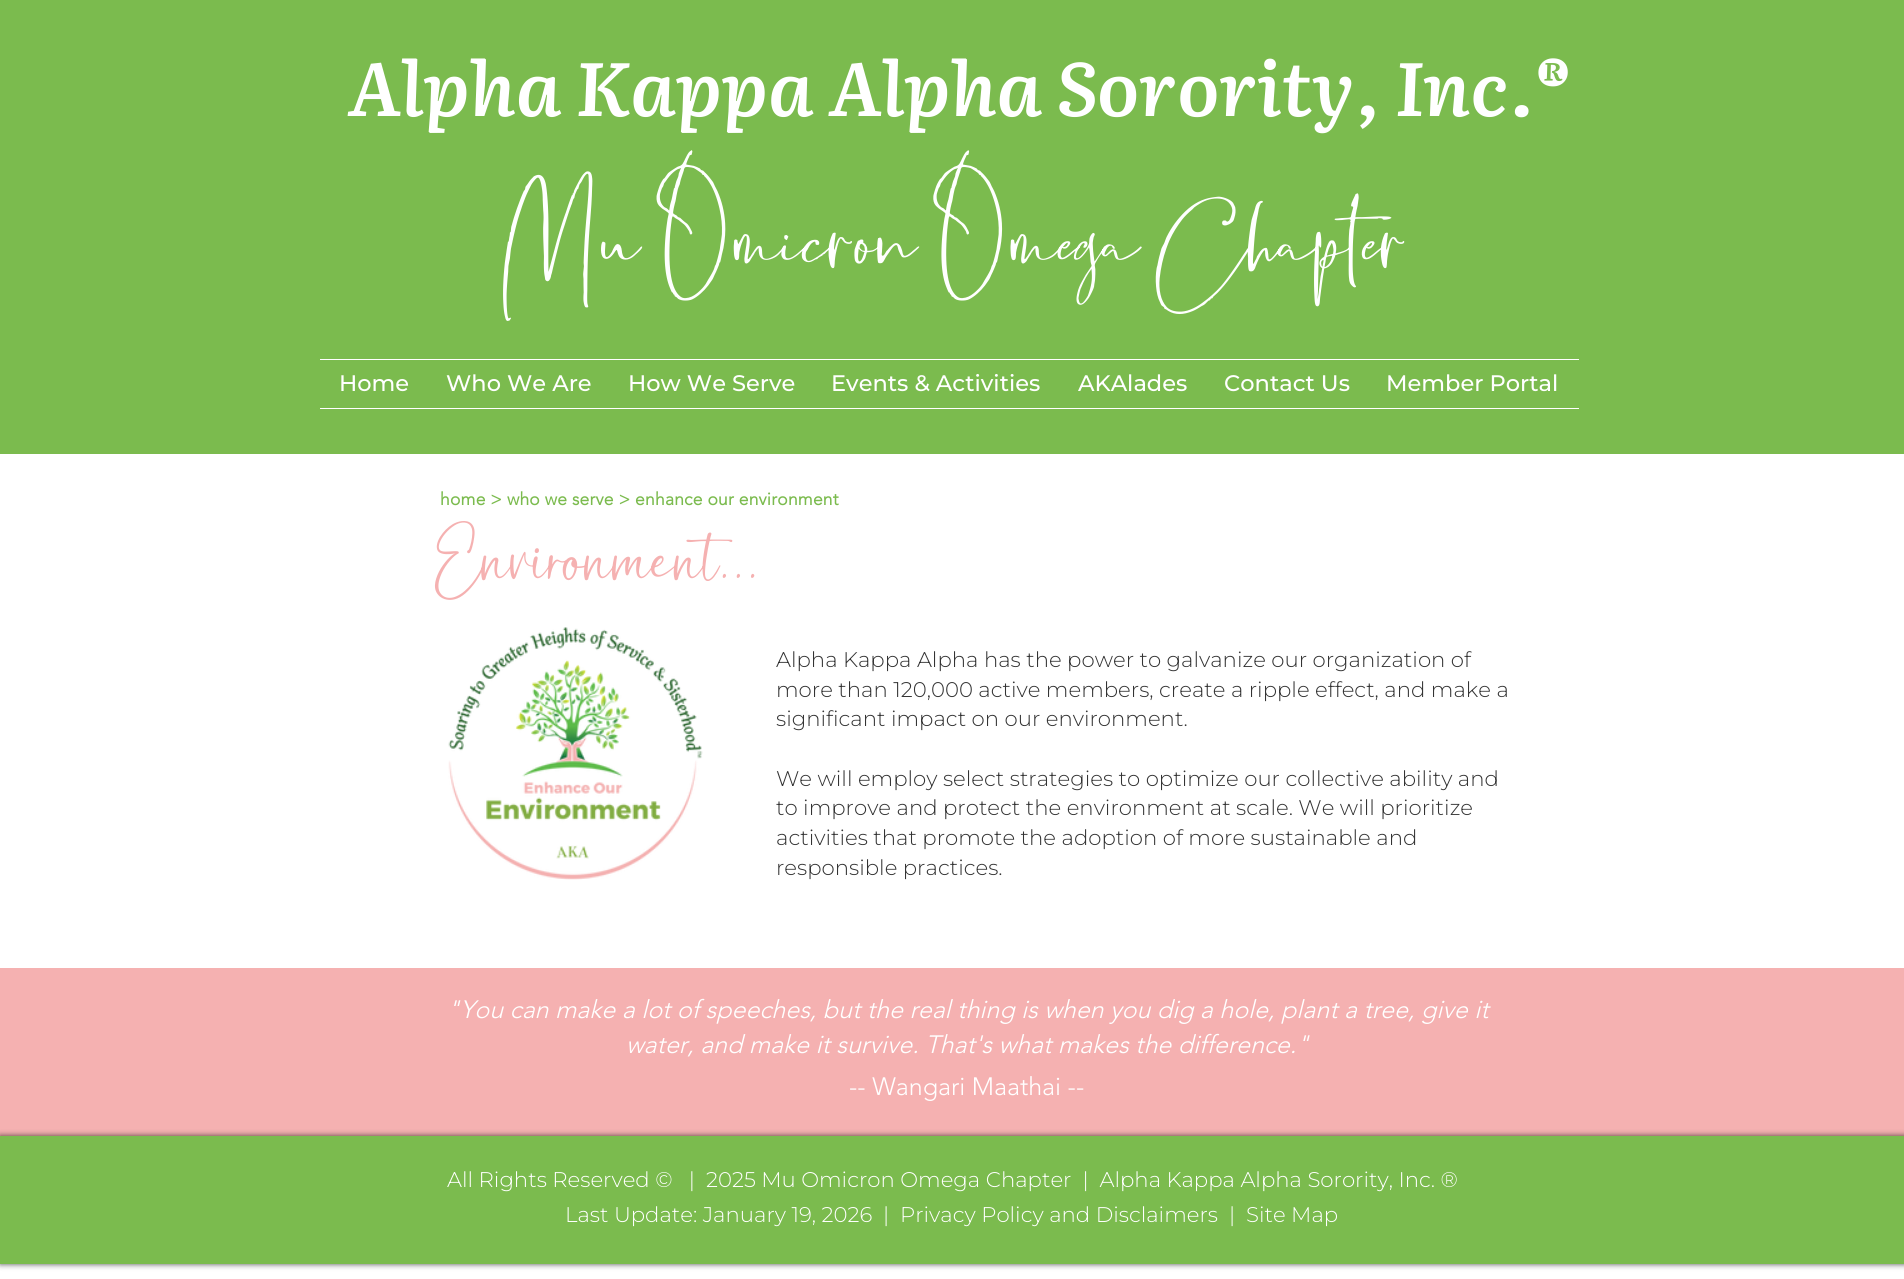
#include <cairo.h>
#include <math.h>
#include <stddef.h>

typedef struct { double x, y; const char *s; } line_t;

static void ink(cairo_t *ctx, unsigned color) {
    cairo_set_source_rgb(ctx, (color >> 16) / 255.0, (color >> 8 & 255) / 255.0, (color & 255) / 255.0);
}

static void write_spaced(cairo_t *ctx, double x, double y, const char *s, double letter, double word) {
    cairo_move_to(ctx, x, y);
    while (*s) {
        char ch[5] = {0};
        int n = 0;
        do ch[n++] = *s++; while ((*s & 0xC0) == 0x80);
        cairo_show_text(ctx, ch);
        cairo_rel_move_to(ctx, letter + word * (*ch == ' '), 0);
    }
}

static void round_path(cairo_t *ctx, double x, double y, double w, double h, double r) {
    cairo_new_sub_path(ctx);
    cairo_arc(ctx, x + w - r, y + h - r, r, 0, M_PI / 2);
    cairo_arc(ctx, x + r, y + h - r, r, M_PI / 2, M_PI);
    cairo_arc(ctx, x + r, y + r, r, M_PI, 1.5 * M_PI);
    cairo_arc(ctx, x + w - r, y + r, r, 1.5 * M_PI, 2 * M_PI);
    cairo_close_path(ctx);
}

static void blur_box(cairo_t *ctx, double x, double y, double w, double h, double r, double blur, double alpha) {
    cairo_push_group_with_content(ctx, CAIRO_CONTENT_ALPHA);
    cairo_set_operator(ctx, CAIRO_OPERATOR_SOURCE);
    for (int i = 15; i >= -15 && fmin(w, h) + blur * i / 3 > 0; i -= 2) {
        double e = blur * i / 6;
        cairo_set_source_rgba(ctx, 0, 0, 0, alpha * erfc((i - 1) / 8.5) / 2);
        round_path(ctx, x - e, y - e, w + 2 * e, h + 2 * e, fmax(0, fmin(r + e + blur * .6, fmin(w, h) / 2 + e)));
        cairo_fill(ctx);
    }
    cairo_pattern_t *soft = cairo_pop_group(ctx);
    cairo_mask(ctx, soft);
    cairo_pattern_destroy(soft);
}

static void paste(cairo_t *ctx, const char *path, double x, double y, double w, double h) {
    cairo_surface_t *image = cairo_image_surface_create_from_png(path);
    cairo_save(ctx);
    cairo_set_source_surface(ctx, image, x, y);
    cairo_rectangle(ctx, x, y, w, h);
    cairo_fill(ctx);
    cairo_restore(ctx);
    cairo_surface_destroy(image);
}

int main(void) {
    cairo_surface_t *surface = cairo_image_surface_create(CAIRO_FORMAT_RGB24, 1904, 1279);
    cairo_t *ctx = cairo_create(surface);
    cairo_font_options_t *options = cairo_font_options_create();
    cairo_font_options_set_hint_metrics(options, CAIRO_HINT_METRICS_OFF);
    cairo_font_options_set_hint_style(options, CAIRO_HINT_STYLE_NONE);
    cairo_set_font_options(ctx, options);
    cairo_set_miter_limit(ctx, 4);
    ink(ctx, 0xFFFFFF);
    cairo_paint(ctx);
    ink(ctx, 0x7BBB4E);
    cairo_rectangle(ctx, 0, 0, 1904, 454);
    cairo_fill(ctx);
    cairo_select_font_face(ctx, "Literata SemiBold", CAIRO_FONT_SLANT_ITALIC, CAIRO_FONT_WEIGHT_NORMAL);
    cairo_set_font_size(ctx, 75);
    ink(ctx, 0xFFFFFF);
    cairo_move_to(ctx, 347, 116);
    cairo_show_text(ctx, "Alpha Kappa Alpha Sorority, Inc.®");
    cairo_select_font_face(ctx, "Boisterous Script", CAIRO_FONT_SLANT_NORMAL, CAIRO_FONT_WEIGHT_NORMAL);
    cairo_set_font_size(ctx, 81.25);
    cairo_move_to(ctx, 503, 260);
    cairo_show_text(ctx, "Mu Omicron Omega Chapter");
    cairo_rectangle(ctx, 320, 359, 1259, 1);
    cairo_fill(ctx);
    cairo_rectangle(ctx, 320, 408, 1259, 1);
    cairo_fill(ctx);
    cairo_select_font_face(ctx, "Montserrat Medium", CAIRO_FONT_SLANT_NORMAL, CAIRO_FONT_WEIGHT_NORMAL);
    cairo_set_font_size(ctx, 22.5);
    {
        static const line_t items[] = {
            {339, 391, "Home"},
            {446, 391, "Who We Are"},
            {628, 391, "How We Serve"},
            {831, 391, "Events & Activities"},
            {1078, 391, "AKAlades"},
            {1224, 391, "Contact Us"},
            {1386, 391, "Member Portal"},
        };
        for (size_t i = 0; i < sizeof items / sizeof *items; i++) {
            cairo_move_to(ctx, items[i].x, items[i].y);
            cairo_show_text(ctx, items[i].s);
        }
    }
    cairo_select_font_face(ctx, "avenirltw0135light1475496", CAIRO_FONT_SLANT_NORMAL, CAIRO_FONT_WEIGHT_BOLD);
    cairo_set_font_size(ctx, 17.5);
    ink(ctx, 0x7BBB4E);
    write_spaced(ctx, 440, 505, "home > who we serve > enhance our environment", 0.2, 0);
    cairo_select_font_face(ctx, "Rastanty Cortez", CAIRO_FONT_SLANT_NORMAL, CAIRO_FONT_WEIGHT_NORMAL);
    cairo_set_font_size(ctx, 101);
    ink(ctx, 0xF5B1B1);
    cairo_move_to(ctx, 435, 580);
    cairo_show_text(ctx, "Environment...");
    paste(ctx, "media/1.png", 448, 627, 255, 253);
    cairo_select_font_face(ctx, "Montserrat Light", CAIRO_FONT_SLANT_NORMAL, CAIRO_FONT_WEIGHT_NORMAL);
    cairo_set_font_size(ctx, 21.25);
    ink(ctx, 0x333333);
    {
        static const line_t items[] = {
            {776, 667, "Alpha Kappa Alpha has the power to galvanize our organization of"},
            {776, 697, "more than 120,000 active members, create a ripple effect, and make a"},
            {776, 726, "significant impact on our environment."},
            {776, 786, "We will employ select strategies to optimize our collective ability and"},
            {776, 815, "to improve and protect the environment at scale. We will prioritize"},
            {776, 845, "activities that promote the adoption of more sustainable and"},
            {776, 875, "responsible practices."},
        };
        for (size_t i = 0; i < sizeof items / sizeof *items; i++) {
            cairo_move_to(ctx, items[i].x, items[i].y);
            cairo_show_text(ctx, items[i].s);
        }
    }
    ink(ctx, 0xF5B1B1);
    cairo_rectangle(ctx, 0, 968, 1904, 168);
    cairo_fill(ctx);
    cairo_select_font_face(ctx, "avenirltw0135light1475496 Light", CAIRO_FONT_SLANT_ITALIC, CAIRO_FONT_WEIGHT_NORMAL);
    cairo_set_font_size(ctx, 25);
    ink(ctx, 0xFFFFFF);
    cairo_move_to(ctx, 447, 1018);
    cairo_show_text(ctx, "\"You can make a lot of speeches, but the real thing is when you dig a hole, plant a tree, give it");
    cairo_move_to(ctx, 626, 1053);
    cairo_show_text(ctx, "water, and make it survive. That's what makes the difference.\"");
    cairo_select_font_face(ctx, "avenirltw0135light1475496 Light", CAIRO_FONT_SLANT_NORMAL, CAIRO_FONT_WEIGHT_NORMAL);
    cairo_move_to(ctx, 849, 1095);
    cairo_show_text(ctx, "-- Wangari Maathai --");
    ink(ctx, 0x000000);
    blur_box(ctx, 0, 1136, 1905, 128, 0, 3, 0.7);
    ink(ctx, 0x7BBB4E);
    cairo_rectangle(ctx, 0, 1136, 1904, 128);
    cairo_fill(ctx);
    cairo_select_font_face(ctx, "Montserrat Light", CAIRO_FONT_SLANT_NORMAL, CAIRO_FONT_WEIGHT_NORMAL);
    cairo_set_font_size(ctx, 21.25);
    ink(ctx, 0xFFFFFF);
    {
        static const line_t items[] = {
            {447, 1187, "All Rights Reserved ©   |  2025 Mu Omicron Omega Chapter  |  Alpha Kappa Alpha Sorority, Inc. ®"},
            {565, 1222, "Last Update: January 19, 2026"},
            {883, 1222, "|"},
            {900, 1222, "Privacy Policy and Disclaimers"},
            {1229, 1222, "|"},
            {1246, 1222, "Site Map"},
        };
        for (size_t i = 0; i < sizeof items / sizeof *items; i++) {
            cairo_move_to(ctx, items[i].x, items[i].y);
            cairo_show_text(ctx, items[i].s);
        }
    }
    cairo_surface_write_to_png(surface, "image.png");
    cairo_font_options_destroy(options);
    cairo_destroy(ctx);
    cairo_surface_destroy(surface);
    return 0;
}
